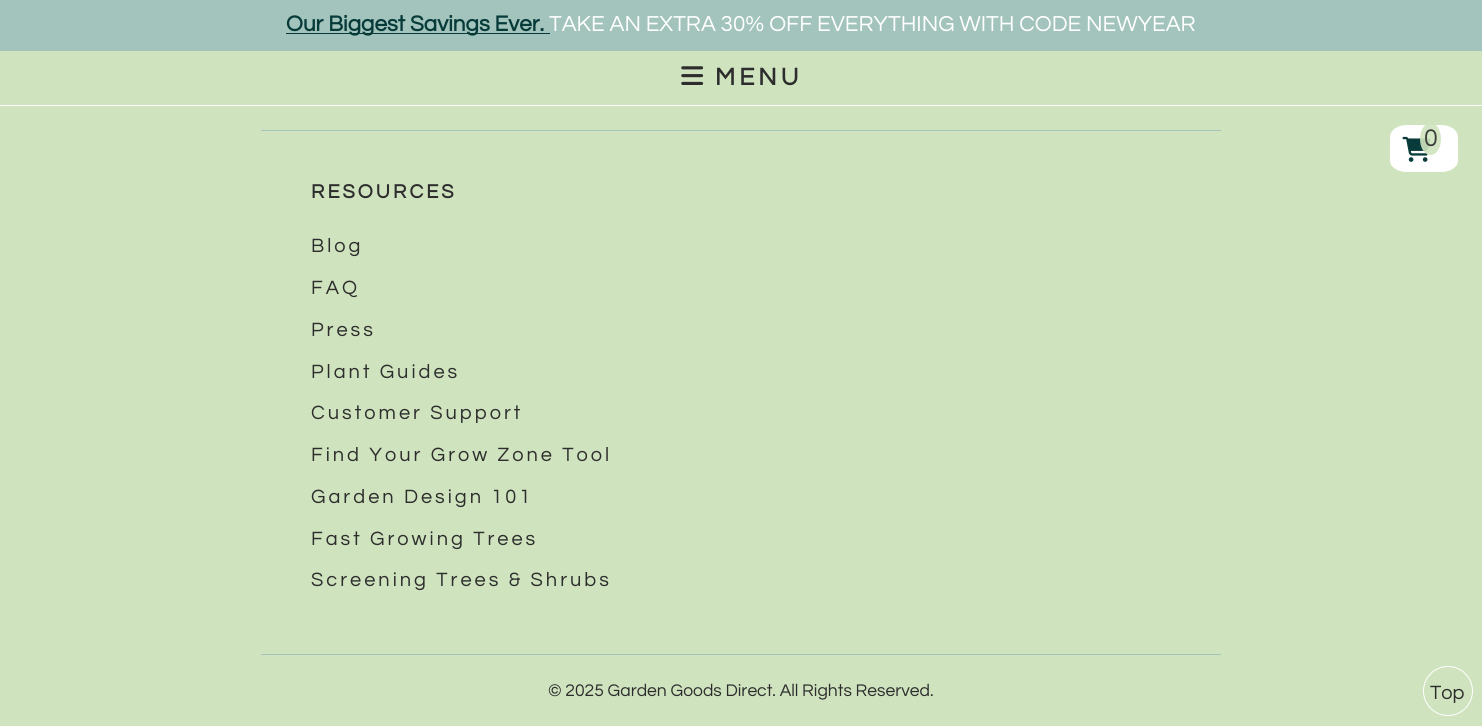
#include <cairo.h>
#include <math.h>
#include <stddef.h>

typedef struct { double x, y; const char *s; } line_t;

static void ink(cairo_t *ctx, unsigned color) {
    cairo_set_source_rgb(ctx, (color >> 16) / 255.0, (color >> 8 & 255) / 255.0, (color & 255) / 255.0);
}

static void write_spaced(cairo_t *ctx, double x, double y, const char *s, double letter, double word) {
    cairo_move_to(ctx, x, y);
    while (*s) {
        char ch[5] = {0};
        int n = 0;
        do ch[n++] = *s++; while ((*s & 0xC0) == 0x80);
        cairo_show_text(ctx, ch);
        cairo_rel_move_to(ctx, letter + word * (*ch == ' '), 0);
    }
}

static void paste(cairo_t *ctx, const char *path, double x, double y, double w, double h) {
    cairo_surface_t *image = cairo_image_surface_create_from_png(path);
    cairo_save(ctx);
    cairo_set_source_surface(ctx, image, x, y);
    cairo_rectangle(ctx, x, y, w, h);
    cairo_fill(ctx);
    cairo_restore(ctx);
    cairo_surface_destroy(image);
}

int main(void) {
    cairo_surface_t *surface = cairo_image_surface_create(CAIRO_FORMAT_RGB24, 1482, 726);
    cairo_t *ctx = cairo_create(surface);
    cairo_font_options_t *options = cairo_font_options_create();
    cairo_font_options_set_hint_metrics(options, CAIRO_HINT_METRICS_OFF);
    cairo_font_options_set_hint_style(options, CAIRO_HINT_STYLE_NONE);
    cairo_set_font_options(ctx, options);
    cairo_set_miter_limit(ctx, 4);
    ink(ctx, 0xCFE3BE);
    cairo_paint(ctx);
    ink(ctx, 0xA3C4BC);
    cairo_rectangle(ctx, 0, 0, 1482, 51);
    cairo_fill(ctx);
    ink(ctx, 0x073B3A);
    cairo_rectangle(ctx, 286, 33, 264, 1);
    cairo_fill(ctx);
    cairo_select_font_face(ctx, "Questrial", CAIRO_FONT_SLANT_NORMAL, CAIRO_FONT_WEIGHT_BOLD);
    cairo_set_font_size(ctx, 22.5);
    cairo_move_to(ctx, 286, 31);
    cairo_show_text(ctx, "Our Biggest Savings Ever.");
    cairo_select_font_face(ctx, "Questrial", CAIRO_FONT_SLANT_NORMAL, CAIRO_FONT_WEIGHT_NORMAL);
    ink(ctx, 0xFFFFFF);
    cairo_move_to(ctx, 549, 31);
    cairo_show_text(ctx, "TAKE AN EXTRA 30% OFF EVERYTHING WITH CODE NEWYEAR");
    cairo_rectangle(ctx, 0, 105, 1482, 1);
    cairo_fill(ctx);
    paste(ctx, "media/1.png", 681, 66, 23, 19);
    cairo_select_font_face(ctx, "Questrial", CAIRO_FONT_SLANT_NORMAL, CAIRO_FONT_WEIGHT_BOLD);
    cairo_set_font_size(ctx, 25);
    ink(ctx, 0x2D2D2D);
    write_spaced(ctx, 715, 85, "MENU", 4, 0);
    ink(ctx, 0xFFFFFF);
    cairo_new_path(ctx);
    cairo_move_to(ctx, 1407, 125);
    cairo_line_to(ctx, 1441, 125);
    cairo_curve_to(ctx, 1450, 125, 1458, 130, 1458, 137);
    cairo_line_to(ctx, 1458, 161);
    cairo_curve_to(ctx, 1458, 167, 1450, 172, 1441, 172);
    cairo_line_to(ctx, 1407, 172);
    cairo_curve_to(ctx, 1398, 172, 1390, 167, 1390, 161);
    cairo_line_to(ctx, 1390, 137);
    cairo_curve_to(ctx, 1390, 130, 1398, 125, 1407, 125);
    cairo_close_path(ctx);
    cairo_fill(ctx);
    paste(ctx, "media/2.png", 1402, 136, 29, 26);
    cairo_set_source_rgba(ctx, 0.812, 0.89, 0.745, 0.9);
    cairo_new_path(ctx);
    cairo_move_to(ctx, 1430.5, 123);
    cairo_curve_to(ctx, 1436.5, 123, 1441, 130, 1441, 139);
    cairo_curve_to(ctx, 1441, 148, 1436.5, 155, 1430.5, 155);
    cairo_curve_to(ctx, 1424.5, 155, 1420, 148, 1420, 139);
    cairo_curve_to(ctx, 1420, 130, 1424.5, 123, 1430.5, 123);
    cairo_close_path(ctx);
    cairo_fill(ctx);
    cairo_select_font_face(ctx, "Questrial", CAIRO_FONT_SLANT_NORMAL, CAIRO_FONT_WEIGHT_NORMAL);
    ink(ctx, 0x3D3F3C);
    cairo_move_to(ctx, 1424, 146);
    cairo_show_text(ctx, "0");
    ink(ctx, 0xA3C4BC);
    cairo_rectangle(ctx, 261, 130, 960, 1);
    cairo_fill(ctx);
    cairo_rectangle(ctx, 261, 654, 960, 1);
    cairo_fill(ctx);
    cairo_select_font_face(ctx, "Questrial", CAIRO_FONT_SLANT_NORMAL, CAIRO_FONT_WEIGHT_BOLD);
    cairo_set_font_size(ctx, 20);
    ink(ctx, 0x2D2D2D);
    write_spaced(ctx, 311, 198, "RESOURCES", 3, 0);
    cairo_select_font_face(ctx, "Questrial", CAIRO_FONT_SLANT_NORMAL, CAIRO_FONT_WEIGHT_NORMAL);
    {
        static const line_t items[] = {
            {311, 252, "Blog"},
            {311, 294, "FAQ"},
            {311, 336, "Press"},
            {311, 378, "Plant Guides"},
            {311, 419, "Customer Support"},
            {311, 461, "Find Your Grow Zone Tool"},
            {311, 503, "Garden Design 101"},
            {311, 545, "Fast Growing Trees"},
            {311, 586, "Screening Trees & Shrubs"},
        };
        for (size_t i = 0; i < sizeof items / sizeof *items; i++) {
            write_spaced(ctx, items[i].x, items[i].y, items[i].s, 3, 0);
        }
    }
    cairo_set_font_size(ctx, 17.5);
    cairo_move_to(ctx, 548, 696);
    cairo_show_text(ctx, "© 2025 Garden Goods Direct. All Rights Reserved.");
    cairo_new_path(ctx);
    cairo_arc(ctx, 1448, 691, 24.5, 0, 2 * M_PI);
    ink(ctx, 0xFFFFFF);
    cairo_set_line_width(ctx, 1);
    cairo_stroke(ctx);
    cairo_set_font_size(ctx, 20);
    ink(ctx, 0x2D2D2D);
    cairo_move_to(ctx, 1430, 699);
    cairo_show_text(ctx, "Top");
    cairo_surface_write_to_png(surface, "image.png");
    cairo_font_options_destroy(options);
    cairo_destroy(ctx);
    cairo_surface_destroy(surface);
    return 0;
}
